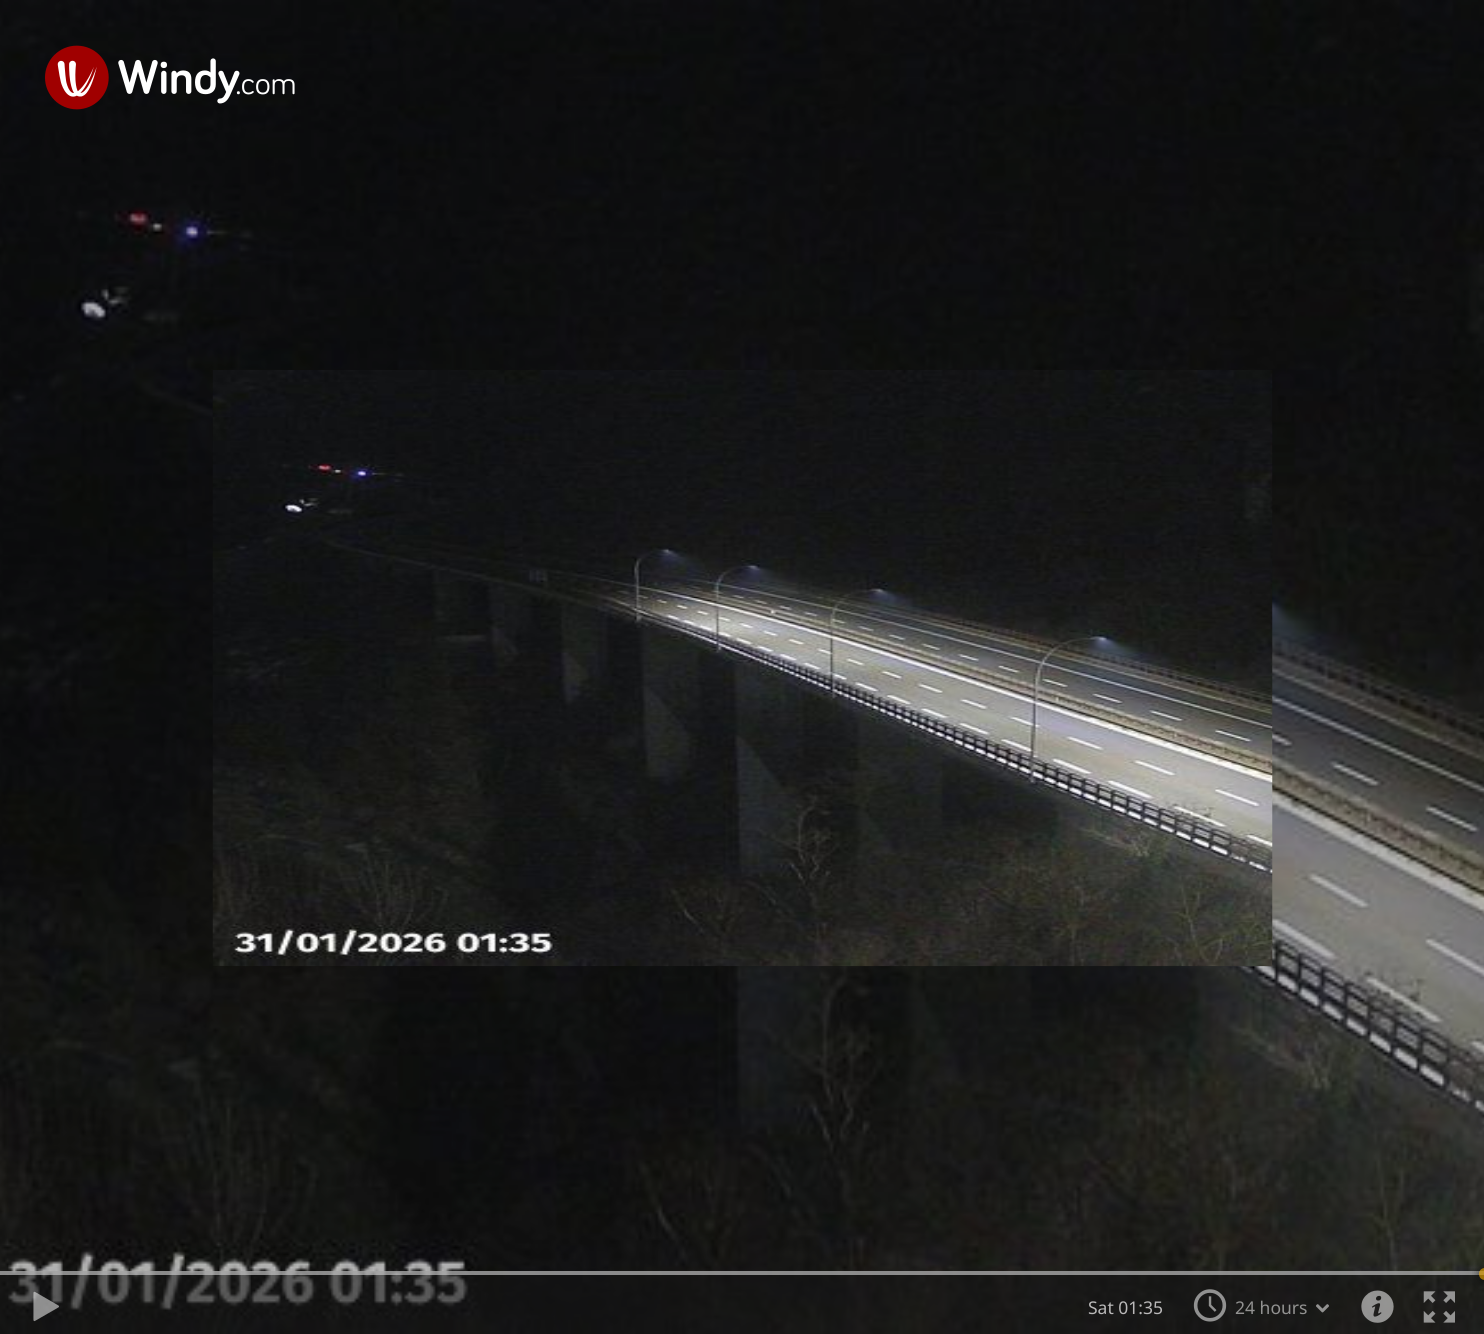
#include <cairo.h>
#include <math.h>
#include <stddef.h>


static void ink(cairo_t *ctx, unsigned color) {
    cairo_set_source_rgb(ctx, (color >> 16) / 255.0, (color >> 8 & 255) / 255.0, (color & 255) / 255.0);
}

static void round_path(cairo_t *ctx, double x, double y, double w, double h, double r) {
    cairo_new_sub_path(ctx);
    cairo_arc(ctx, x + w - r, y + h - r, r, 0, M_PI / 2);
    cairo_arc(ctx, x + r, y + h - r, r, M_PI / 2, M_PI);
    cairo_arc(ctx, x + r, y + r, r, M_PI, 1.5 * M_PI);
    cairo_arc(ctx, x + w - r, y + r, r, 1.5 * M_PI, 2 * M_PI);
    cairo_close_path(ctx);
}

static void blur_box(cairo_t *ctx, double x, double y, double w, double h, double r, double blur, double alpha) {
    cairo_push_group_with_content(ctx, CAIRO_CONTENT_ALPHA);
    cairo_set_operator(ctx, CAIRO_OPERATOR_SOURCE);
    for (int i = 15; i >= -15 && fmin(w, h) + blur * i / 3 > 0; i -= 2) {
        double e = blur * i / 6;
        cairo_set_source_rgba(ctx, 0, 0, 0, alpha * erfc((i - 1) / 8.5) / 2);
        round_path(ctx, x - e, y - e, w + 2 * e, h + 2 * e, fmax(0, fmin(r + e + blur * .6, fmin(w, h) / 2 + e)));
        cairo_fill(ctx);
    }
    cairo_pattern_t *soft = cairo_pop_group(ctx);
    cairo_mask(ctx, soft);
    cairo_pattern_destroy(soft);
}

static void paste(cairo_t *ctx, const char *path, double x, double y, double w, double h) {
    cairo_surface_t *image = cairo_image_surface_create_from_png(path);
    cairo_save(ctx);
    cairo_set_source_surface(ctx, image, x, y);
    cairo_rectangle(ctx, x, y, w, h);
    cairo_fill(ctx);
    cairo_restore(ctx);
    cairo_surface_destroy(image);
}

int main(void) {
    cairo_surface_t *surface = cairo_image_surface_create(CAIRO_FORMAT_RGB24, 1484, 1334);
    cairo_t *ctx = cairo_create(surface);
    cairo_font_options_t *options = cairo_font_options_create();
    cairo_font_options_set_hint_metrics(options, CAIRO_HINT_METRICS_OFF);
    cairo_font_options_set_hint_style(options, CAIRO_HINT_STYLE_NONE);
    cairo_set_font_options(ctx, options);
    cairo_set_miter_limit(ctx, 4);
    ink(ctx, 0xFFFFFF);
    cairo_paint(ctx);
    paste(ctx, "media/1.png", 0, 0, 1484, 1334);
    paste(ctx, "media/2.png", 45, 45, 250, 65);
    paste(ctx, "media/3.png", 212, 370, 1061, 597);
    cairo_set_source_rgba(ctx, 0.078, 0.078, 0.078, 0.56);
    cairo_rectangle(ctx, 0, 1271, 1484, 63);
    cairo_fill(ctx);
    cairo_set_source_rgba(ctx, 0.863, 0.863, 0.863, 0.59);
    cairo_rectangle(ctx, 0, 1271, 1484, 4);
    cairo_fill(ctx);
    cairo_save(ctx);
    cairo_set_fill_rule(ctx, CAIRO_FILL_RULE_EVEN_ODD);
    cairo_new_path(ctx);
    cairo_move_to(ctx, 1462, 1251);
    cairo_line_to(ctx, 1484, 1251);
    cairo_line_to(ctx, 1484, 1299);
    cairo_line_to(ctx, 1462, 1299);
    cairo_close_path(ctx);
    cairo_move_to(ctx, 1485, 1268);
    cairo_curve_to(ctx, 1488.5, 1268, 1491, 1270.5, 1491, 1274);
    cairo_curve_to(ctx, 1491, 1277.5, 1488.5, 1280, 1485, 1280);
    cairo_curve_to(ctx, 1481.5, 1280, 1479, 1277.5, 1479, 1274);
    cairo_curve_to(ctx, 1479, 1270.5, 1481.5, 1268, 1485, 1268);
    cairo_close_path(ctx);
    cairo_clip(ctx);
    ink(ctx, 0x000000);
    blur_box(ctx, 1480, 1269, 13, 12, 6, 5.5, 0.7);
    cairo_restore(ctx);
    cairo_set_source_rgba(ctx, 0.831, 0.584, 0, 0.7);
    cairo_new_path(ctx);
    cairo_move_to(ctx, 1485, 1268);
    cairo_line_to(ctx, 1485, 1280);
    cairo_curve_to(ctx, 1481.5, 1280, 1479, 1277.5, 1479, 1274);
    cairo_curve_to(ctx, 1479, 1270.5, 1481.5, 1268, 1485, 1268);
    cairo_close_path(ctx);
    cairo_fill(ctx);
    paste(ctx, "media/4.png", 33, 1291, 26, 31);
    cairo_select_font_face(ctx, "Noto Sans", CAIRO_FONT_SLANT_NORMAL, CAIRO_FONT_WEIGHT_NORMAL);
    cairo_set_font_size(ctx, 17.5);
    ink(ctx, 0xBAB9B9);
    cairo_move_to(ctx, 1088, 1314);
    cairo_show_text(ctx, "Sat 01:35");
    paste(ctx, "media/5.png", 1193, 1289, 34, 33);
    ink(ctx, 0x929291);
    cairo_move_to(ctx, 1235, 1314);
    cairo_show_text(ctx, "24 hours");
    paste(ctx, "media/6.png", 1316, 1304, 13, 9);
    paste(ctx, "media/7.png", 1361, 1290, 33, 33);
    paste(ctx, "media/8.png", 1423, 1291, 32, 32);
    cairo_surface_write_to_png(surface, "image.png");
    cairo_font_options_destroy(options);
    cairo_destroy(ctx);
    cairo_surface_destroy(surface);
    return 0;
}
